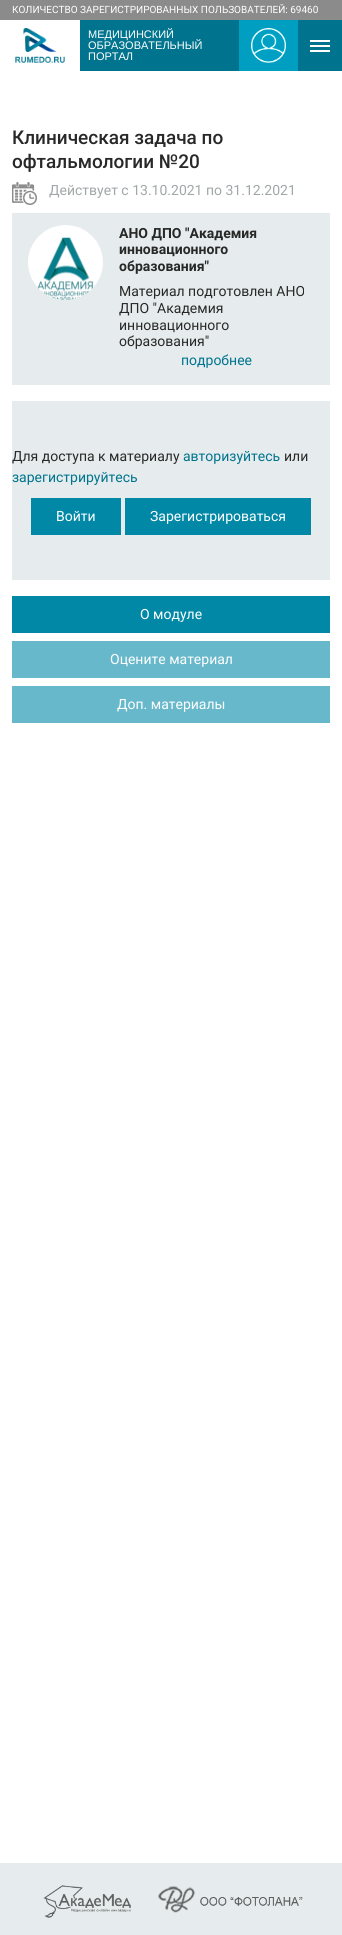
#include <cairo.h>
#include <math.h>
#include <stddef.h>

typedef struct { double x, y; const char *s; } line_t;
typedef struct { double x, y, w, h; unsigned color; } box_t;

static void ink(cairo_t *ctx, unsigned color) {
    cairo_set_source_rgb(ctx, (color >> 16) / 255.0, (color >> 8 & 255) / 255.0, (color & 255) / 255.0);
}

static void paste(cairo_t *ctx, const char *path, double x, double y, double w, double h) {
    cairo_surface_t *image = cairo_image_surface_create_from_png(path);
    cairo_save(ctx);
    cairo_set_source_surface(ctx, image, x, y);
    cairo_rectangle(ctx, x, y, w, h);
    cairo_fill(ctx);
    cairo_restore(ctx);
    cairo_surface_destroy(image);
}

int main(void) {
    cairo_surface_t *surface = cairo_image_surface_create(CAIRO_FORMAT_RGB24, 342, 1935);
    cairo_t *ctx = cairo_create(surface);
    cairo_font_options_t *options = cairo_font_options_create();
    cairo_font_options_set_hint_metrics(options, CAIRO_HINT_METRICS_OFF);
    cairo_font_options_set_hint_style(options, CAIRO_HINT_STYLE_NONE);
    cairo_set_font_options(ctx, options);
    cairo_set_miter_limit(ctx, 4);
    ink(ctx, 0xFFFFFF);
    cairo_paint(ctx);
    ink(ctx, 0x8B8B8B);
    cairo_rectangle(ctx, 0, 0, 342, 20);
    cairo_fill(ctx);
    cairo_select_font_face(ctx, "Roboto", CAIRO_FONT_SLANT_NORMAL, CAIRO_FONT_WEIGHT_NORMAL);
    cairo_set_font_size(ctx, 10);
    ink(ctx, 0xFFFFFF);
    cairo_move_to(ctx, 12, 13);
    cairo_show_text(ctx, "КОЛИЧЕСТВО ЗАРЕГИСТРИРОВАННЫХ ПОЛЬЗОВАТЕЛЕЙ: 69460");
    ink(ctx, 0x00748E);
    cairo_rectangle(ctx, 80, 20, 262, 51);
    cairo_fill(ctx);
    paste(ctx, "media/1.png", 15, 28, 50, 35);
    cairo_select_font_face(ctx, "Liberation Sans", CAIRO_FONT_SLANT_NORMAL, CAIRO_FONT_WEIGHT_NORMAL);
    cairo_set_font_size(ctx, 11);
    ink(ctx, 0xFFFFFF);
    {
        static const line_t items[] = {
            {88, 38, "МЕДИЦИНСКИЙ"},
            {88, 49, "ОБРАЗОВАТЕЛЬНЫЙ"},
            {88, 60, "ПОРТАЛ"},
        };
        for (size_t i = 0; i < sizeof items / sizeof *items; i++) {
            cairo_move_to(ctx, items[i].x, items[i].y);
            cairo_show_text(ctx, items[i].s);
        }
    }
    ink(ctx, 0x009EC1);
    cairo_rectangle(ctx, 239, 20, 59, 51);
    cairo_fill(ctx);
    paste(ctx, "media/2.png", 251, 28, 35, 35);
    {
        static const box_t items[] = {
            {310, 45, 20, 2, 0xFFFFFF},
            {310, 40, 20, 2, 0xFFFFFF},
            {310, 50, 20, 2, 0xFFFFFF},
        };
        for (size_t i = 0; i < sizeof items / sizeof *items; i++) {
            ink(ctx, items[i].color);
            cairo_rectangle(ctx, items[i].x, items[i].y, items[i].w, items[i].h);
            cairo_fill(ctx);
        }
    }
    cairo_select_font_face(ctx, "Roboto Medium", CAIRO_FONT_SLANT_NORMAL, CAIRO_FONT_WEIGHT_NORMAL);
    cairo_set_font_size(ctx, 19);
    ink(ctx, 0x282828);
    cairo_move_to(ctx, 12, 144);
    cairo_show_text(ctx, "Клиническая задача по");
    cairo_move_to(ctx, 12, 168);
    cairo_show_text(ctx, "офтальмологии №20");
    paste(ctx, "media/3.png", 12, 182, 25, 23);
    cairo_select_font_face(ctx, "Roboto", CAIRO_FONT_SLANT_NORMAL, CAIRO_FONT_WEIGHT_NORMAL);
    cairo_set_font_size(ctx, 14);
    ink(ctx, 0xA1A7A8);
    cairo_move_to(ctx, 49, 195);
    cairo_show_text(ctx, "Действует с 13.10.2021 по 31.12.2021");
    ink(ctx, 0xE6ECED);
    cairo_rectangle(ctx, 12, 213, 318, 172);
    cairo_fill(ctx);
    paste(ctx, "media/4.png", 28, 225, 75, 75);
    cairo_select_font_face(ctx, "Roboto", CAIRO_FONT_SLANT_NORMAL, CAIRO_FONT_WEIGHT_BOLD);
    ink(ctx, 0x282828);
    {
        static const line_t items[] = {
            {119, 238, "АНО ДПО \"Академия"},
            {119, 254, "инновационного"},
            {119, 271, "образования\""},
        };
        for (size_t i = 0; i < sizeof items / sizeof *items; i++) {
            cairo_move_to(ctx, items[i].x, items[i].y);
            cairo_show_text(ctx, items[i].s);
        }
    }
    cairo_select_font_face(ctx, "Roboto", CAIRO_FONT_SLANT_NORMAL, CAIRO_FONT_WEIGHT_NORMAL);
    {
        static const line_t items[] = {
            {119, 296, "Материал подготовлен АНО"},
            {119, 313, "ДПО \"Академия"},
            {119, 330, "инновационного"},
            {119, 346, "образования\""},
        };
        for (size_t i = 0; i < sizeof items / sizeof *items; i++) {
            cairo_move_to(ctx, items[i].x, items[i].y);
            cairo_show_text(ctx, items[i].s);
        }
    }
    ink(ctx, 0x00748E);
    cairo_move_to(ctx, 181, 365);
    cairo_show_text(ctx, "подробнее");
    ink(ctx, 0xE6ECED);
    cairo_rectangle(ctx, 12, 401, 318, 179);
    cairo_fill(ctx);
    ink(ctx, 0x282828);
    cairo_move_to(ctx, 12, 461);
    cairo_show_text(ctx, "Для доступа к материалу");
    ink(ctx, 0x00748E);
    cairo_move_to(ctx, 183, 461);
    cairo_show_text(ctx, "авторизуйтесь");
    ink(ctx, 0x282828);
    cairo_move_to(ctx, 284, 461);
    cairo_show_text(ctx, "или");
    ink(ctx, 0x00748E);
    cairo_move_to(ctx, 12, 482);
    cairo_show_text(ctx, "зарегистрируйтесь");
    ink(ctx, 0x0088A6);
    cairo_rectangle(ctx, 31, 498, 90, 37);
    cairo_fill(ctx);
    ink(ctx, 0xFFFFFF);
    cairo_move_to(ctx, 56, 521);
    cairo_show_text(ctx, "Войти");
    ink(ctx, 0x0088A6);
    cairo_rectangle(ctx, 125, 498, 186, 37);
    cairo_fill(ctx);
    ink(ctx, 0xFFFFFF);
    cairo_move_to(ctx, 150, 521);
    cairo_show_text(ctx, "Зарегистрироваться");
    ink(ctx, 0x0088A6);
    cairo_rectangle(ctx, 12, 596, 318, 37);
    cairo_fill(ctx);
    ink(ctx, 0xFFFFFF);
    cairo_move_to(ctx, 140, 619);
    cairo_show_text(ctx, "О модуле");
    ink(ctx, 0x66B8CA);
    cairo_rectangle(ctx, 12, 641, 318, 37);
    cairo_fill(ctx);
    ink(ctx, 0xFFFFFF);
    cairo_move_to(ctx, 110, 664);
    cairo_show_text(ctx, "Оцените материал");
    ink(ctx, 0x66B8CA);
    cairo_rectangle(ctx, 12, 686, 318, 37);
    cairo_fill(ctx);
    ink(ctx, 0xFFFFFF);
    cairo_move_to(ctx, 117, 709);
    cairo_show_text(ctx, "Доп. материалы");
    ink(ctx, 0xE6ECED);
    cairo_rectangle(ctx, 0, 1863, 342, 72);
    cairo_fill(ctx);
    paste(ctx, "media/5.png", 43, 1885, 260, 33);
    cairo_surface_write_to_png(surface, "image.png");
    cairo_font_options_destroy(options);
    cairo_destroy(ctx);
    cairo_surface_destroy(surface);
    return 0;
}
